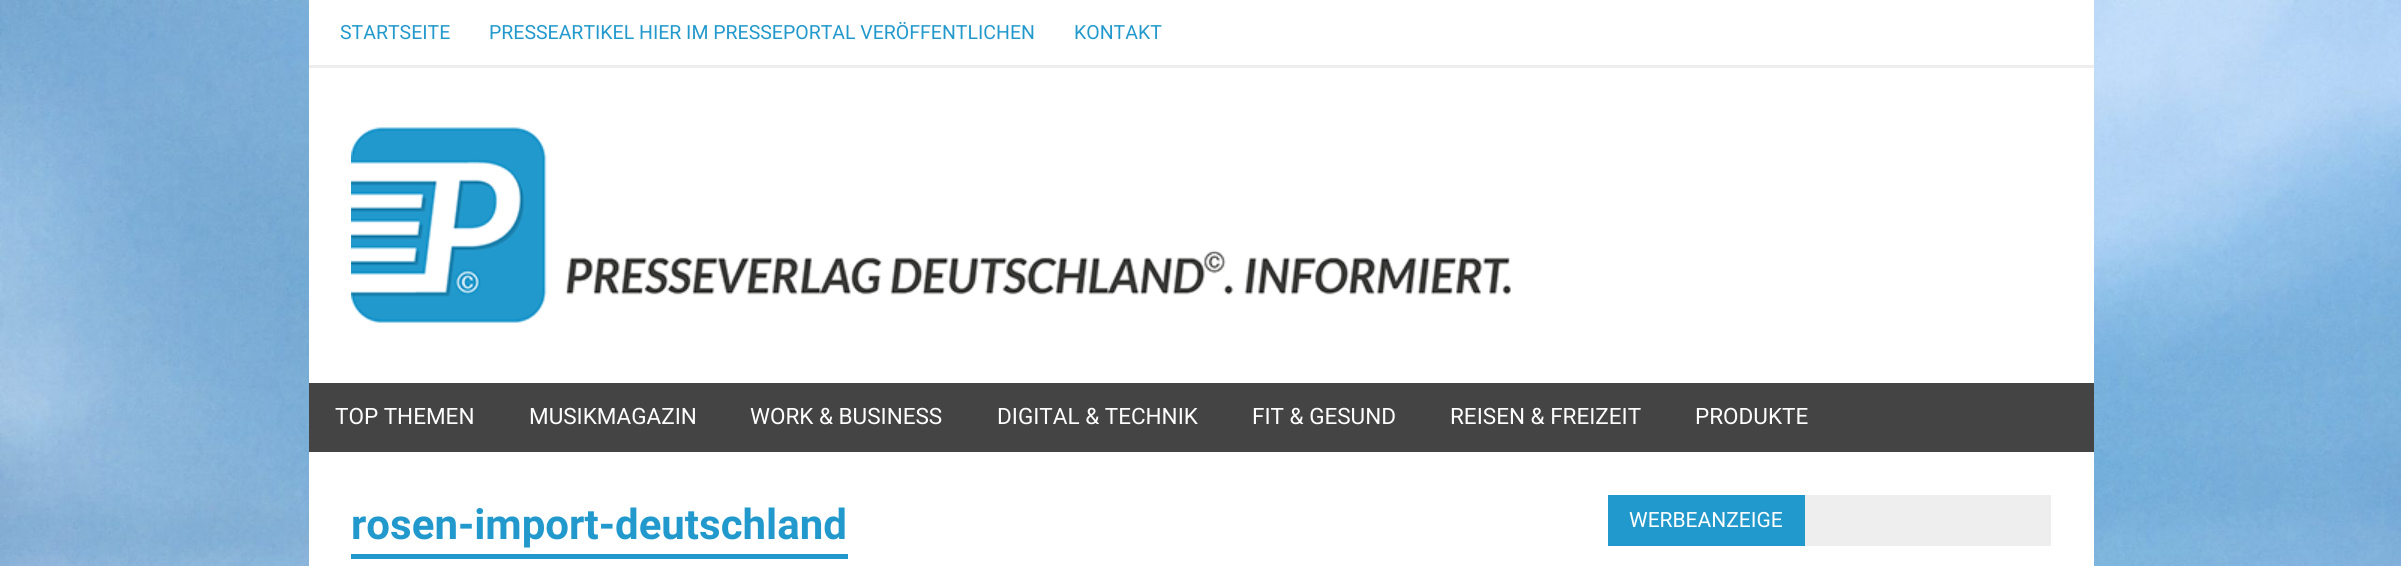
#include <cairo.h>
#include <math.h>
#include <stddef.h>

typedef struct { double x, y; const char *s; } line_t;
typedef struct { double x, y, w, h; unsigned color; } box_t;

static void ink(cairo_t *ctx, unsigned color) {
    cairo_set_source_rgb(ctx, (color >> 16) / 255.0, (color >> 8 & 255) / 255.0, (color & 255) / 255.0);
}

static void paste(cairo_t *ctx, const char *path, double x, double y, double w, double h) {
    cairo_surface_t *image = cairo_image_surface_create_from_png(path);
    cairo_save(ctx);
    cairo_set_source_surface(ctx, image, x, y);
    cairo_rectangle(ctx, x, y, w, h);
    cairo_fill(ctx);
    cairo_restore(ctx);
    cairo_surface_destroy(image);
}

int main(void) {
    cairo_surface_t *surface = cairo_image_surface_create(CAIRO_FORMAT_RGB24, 2401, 566);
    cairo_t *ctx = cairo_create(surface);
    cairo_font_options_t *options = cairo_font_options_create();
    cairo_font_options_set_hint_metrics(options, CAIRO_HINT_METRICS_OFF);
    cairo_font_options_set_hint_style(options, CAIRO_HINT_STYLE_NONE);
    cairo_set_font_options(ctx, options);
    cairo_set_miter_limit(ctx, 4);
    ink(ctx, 0xFFFFFF);
    cairo_paint(ctx);
    paste(ctx, "media/1.png", 0, 0, 2401, 566);
    ink(ctx, 0xFFFFFF);
    cairo_rectangle(ctx, 309, 0, 1785, 566);
    cairo_fill(ctx);
    ink(ctx, 0xEEEEEE);
    cairo_rectangle(ctx, 309, 65, 1785, 3);
    cairo_fill(ctx);
    cairo_select_font_face(ctx, "Roboto", CAIRO_FONT_SLANT_NORMAL, CAIRO_FONT_WEIGHT_NORMAL);
    cairo_set_font_size(ctx, 19.5);
    ink(ctx, 0x2299CC);
    {
        static const line_t items[] = {
            {340, 39, "STARTSEITE"},
            {489, 39, "PRESSEARTIKEL HIER IM PRESSEPORTAL VERÖFFENTLICHEN"},
            {1074, 39, "KONTAKT"},
        };
        for (size_t i = 0; i < sizeof items / sizeof *items; i++) {
            cairo_move_to(ctx, items[i].x, items[i].y);
            cairo_show_text(ctx, items[i].s);
        }
    }
    paste(ctx, "media/2.png", 351, 127, 1160, 196);
    ink(ctx, 0x444444);
    cairo_rectangle(ctx, 309, 383, 1785, 69);
    cairo_fill(ctx);
    cairo_set_font_size(ctx, 22.5);
    ink(ctx, 0xFFFFFF);
    {
        static const line_t items[] = {
            {335, 424, "TOP THEMEN"},
            {529, 424, "MUSIKMAGAZIN"},
            {750, 424, "WORK & BUSINESS"},
            {997, 424, "DIGITAL & TECHNIK"},
            {1252, 424, "FIT & GESUND"},
            {1450, 424, "REISEN & FREIZEIT"},
            {1695, 424, "PRODUKTE"},
        };
        for (size_t i = 0; i < sizeof items / sizeof *items; i++) {
            cairo_move_to(ctx, items[i].x, items[i].y);
            cairo_show_text(ctx, items[i].s);
        }
    }
    cairo_select_font_face(ctx, "Roboto", CAIRO_FONT_SLANT_NORMAL, CAIRO_FONT_WEIGHT_BOLD);
    cairo_set_font_size(ctx, 42);
    ink(ctx, 0x2299CC);
    cairo_move_to(ctx, 351, 539);
    cairo_show_text(ctx, "rosen-import-deutschland");
    {
        static const box_t items[] = {
            {351, 554, 497, 5, 0x2299CC},
            {1805, 495, 246, 51, 0xEEEEEE},
            {1608, 495, 197, 51, 0x2299CC},
        };
        for (size_t i = 0; i < sizeof items / sizeof *items; i++) {
            ink(ctx, items[i].color);
            cairo_rectangle(ctx, items[i].x, items[i].y, items[i].w, items[i].h);
            cairo_fill(ctx);
        }
    }
    cairo_select_font_face(ctx, "Roboto", CAIRO_FONT_SLANT_NORMAL, CAIRO_FONT_WEIGHT_NORMAL);
    cairo_set_font_size(ctx, 21);
    ink(ctx, 0xFFFFFF);
    cairo_move_to(ctx, 1629, 527);
    cairo_show_text(ctx, "WERBEANZEIGE");
    cairo_surface_write_to_png(surface, "image.png");
    cairo_font_options_destroy(options);
    cairo_destroy(ctx);
    cairo_surface_destroy(surface);
    return 0;
}
